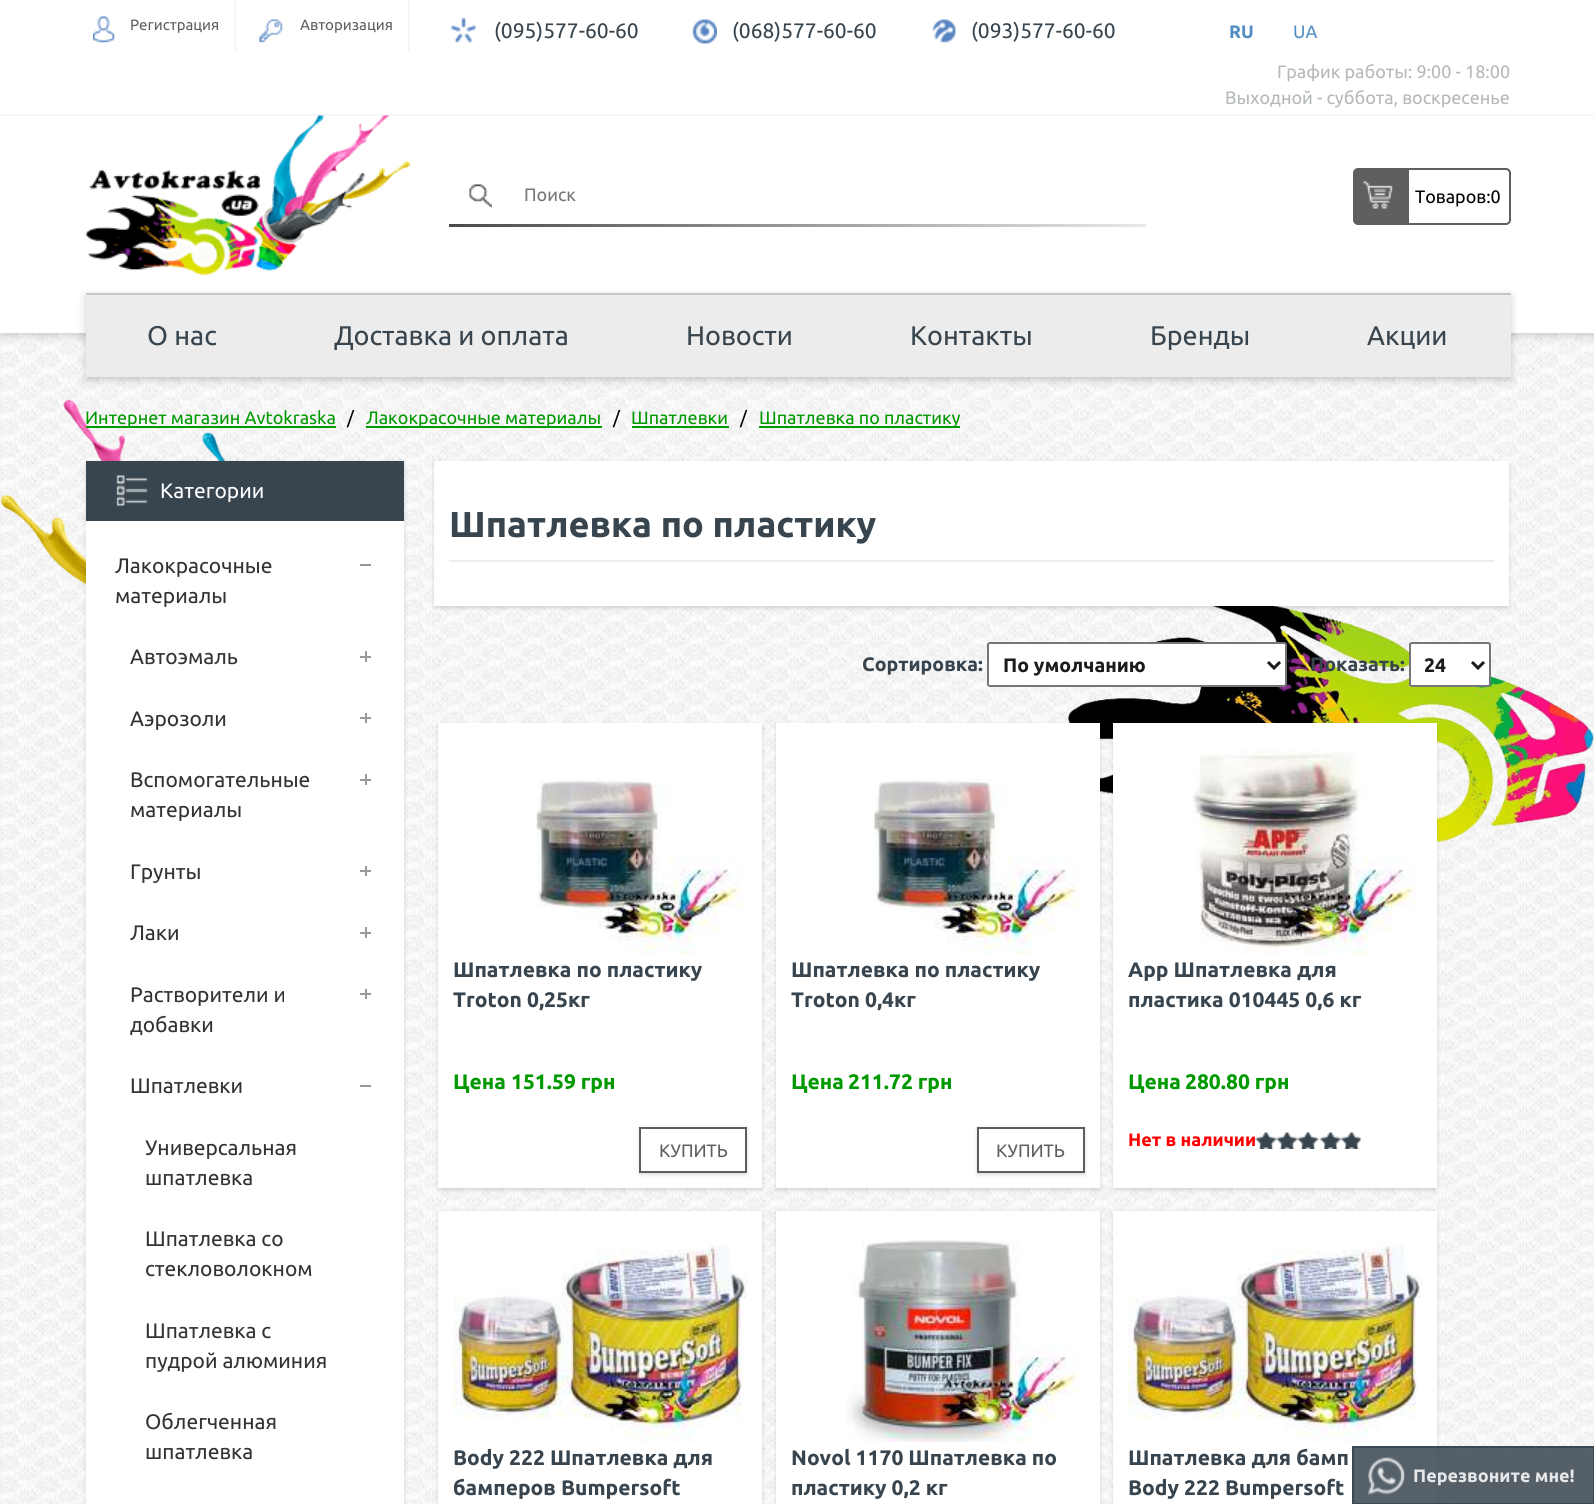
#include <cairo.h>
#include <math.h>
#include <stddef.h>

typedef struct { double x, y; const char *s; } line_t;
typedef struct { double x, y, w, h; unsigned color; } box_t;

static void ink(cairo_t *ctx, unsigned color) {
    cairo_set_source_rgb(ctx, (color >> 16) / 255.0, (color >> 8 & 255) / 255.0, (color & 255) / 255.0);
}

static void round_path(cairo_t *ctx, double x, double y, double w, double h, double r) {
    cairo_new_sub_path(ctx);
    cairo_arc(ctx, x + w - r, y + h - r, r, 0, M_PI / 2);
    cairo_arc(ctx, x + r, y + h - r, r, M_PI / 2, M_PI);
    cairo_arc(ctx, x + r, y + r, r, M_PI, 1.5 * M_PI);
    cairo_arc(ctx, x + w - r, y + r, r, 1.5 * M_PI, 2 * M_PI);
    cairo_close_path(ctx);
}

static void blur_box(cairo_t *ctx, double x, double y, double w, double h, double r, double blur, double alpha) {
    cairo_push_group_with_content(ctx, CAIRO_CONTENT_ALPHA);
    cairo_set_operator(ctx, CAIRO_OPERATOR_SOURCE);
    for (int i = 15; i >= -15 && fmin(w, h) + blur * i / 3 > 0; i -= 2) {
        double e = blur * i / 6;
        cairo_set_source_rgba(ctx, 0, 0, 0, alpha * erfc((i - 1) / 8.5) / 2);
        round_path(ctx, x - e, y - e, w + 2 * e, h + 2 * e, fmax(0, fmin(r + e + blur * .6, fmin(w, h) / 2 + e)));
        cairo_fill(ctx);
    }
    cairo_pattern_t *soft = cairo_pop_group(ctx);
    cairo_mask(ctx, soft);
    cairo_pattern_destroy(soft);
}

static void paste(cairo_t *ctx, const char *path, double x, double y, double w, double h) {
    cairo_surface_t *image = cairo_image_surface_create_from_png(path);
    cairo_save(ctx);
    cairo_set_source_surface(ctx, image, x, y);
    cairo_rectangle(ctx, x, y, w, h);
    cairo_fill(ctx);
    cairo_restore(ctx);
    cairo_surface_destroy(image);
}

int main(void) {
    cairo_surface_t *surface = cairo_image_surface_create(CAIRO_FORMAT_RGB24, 1594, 1504);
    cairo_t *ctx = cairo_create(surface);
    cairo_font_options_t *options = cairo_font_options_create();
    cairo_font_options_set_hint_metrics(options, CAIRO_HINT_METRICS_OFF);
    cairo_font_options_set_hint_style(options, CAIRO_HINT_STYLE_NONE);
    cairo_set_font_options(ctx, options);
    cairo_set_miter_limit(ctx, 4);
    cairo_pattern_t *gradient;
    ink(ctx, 0xFFFFFF);
    cairo_paint(ctx);
    paste(ctx, "media/1.png", 0, 333, 1594, 1171);
    ink(ctx, 0x000000);
    blur_box(ctx, 2, 2, 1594, 333, 0, 4.5, 0.2);
    {
        static const box_t items[] = {
            {0, 0, 1594, 333, 0xFFFFFF},
            {0, 114, 1594, 2, 0xF5F5F5},
            {234, 0, 2, 51, 0xF5F5F5},
        };
        for (size_t i = 0; i < sizeof items / sizeof *items; i++) {
            ink(ctx, items[i].color);
            cairo_rectangle(ctx, items[i].x, items[i].y, items[i].w, items[i].h);
            cairo_fill(ctx);
        }
    }
    paste(ctx, "media/2.png", 93, 16, 22, 27);
    cairo_select_font_face(ctx, "Ubuntu", CAIRO_FONT_SLANT_NORMAL, CAIRO_FONT_WEIGHT_NORMAL);
    cairo_set_font_size(ctx, 15);
    ink(ctx, 0x5F5F5F);
    cairo_move_to(ctx, 130, 30);
    cairo_show_text(ctx, "Регистрация");
    ink(ctx, 0xF5F5F5);
    cairo_rectangle(ctx, 408, 0, 2, 51);
    cairo_fill(ctx);
    paste(ctx, "media/3.png", 259, 19, 24, 24);
    ink(ctx, 0x5F5F5F);
    cairo_move_to(ctx, 300, 30);
    cairo_show_text(ctx, "Авторизация");
    paste(ctx, "media/4.png", 451, 17, 25, 26);
    cairo_set_font_size(ctx, 21);
    ink(ctx, 0x38454E);
    cairo_move_to(ctx, 494, 38);
    cairo_show_text(ctx, "(095)577-60-60");
    paste(ctx, "media/5.png", 692, 19, 25, 25);
    cairo_move_to(ctx, 732, 38);
    cairo_show_text(ctx, "(068)577-60-60");
    paste(ctx, "media/6.png", 932, 19, 24, 24);
    cairo_move_to(ctx, 971, 38);
    cairo_show_text(ctx, "(093)577-60-60");
    cairo_select_font_face(ctx, "Ubuntu", CAIRO_FONT_SLANT_NORMAL, CAIRO_FONT_WEIGHT_BOLD);
    cairo_set_font_size(ctx, 18);
    ink(ctx, 0x528EC2);
    cairo_move_to(ctx, 1229, 38);
    cairo_show_text(ctx, "RU");
    cairo_select_font_face(ctx, "Ubuntu", CAIRO_FONT_SLANT_NORMAL, CAIRO_FONT_WEIGHT_NORMAL);
    cairo_move_to(ctx, 1293, 38);
    cairo_show_text(ctx, "UA");
    ink(ctx, 0xB4B8BA);
    cairo_move_to(ctx, 1277, 78);
    cairo_show_text(ctx, "График работы: 9:00 - 18:00");
    cairo_move_to(ctx, 1225, 104);
    cairo_show_text(ctx, "Выходной - суббота, воскресенье");
    paste(ctx, "media/7.png", 85, 115, 326, 161);
    paste(ctx, "media/8.png", 468, 184, 24, 24);
    ink(ctx, 0x757575);
    cairo_move_to(ctx, 524, 201);
    cairo_show_text(ctx, "Поиск");
    gradient = cairo_pattern_create_linear(449, 225, 1146, 225);
    cairo_pattern_add_color_stop_rgba(gradient, 0, 0.29, 0.29, 0.29, 1);
    cairo_pattern_add_color_stop_rgba(gradient, 1, 0.914, 0.914, 0.914, 1);
    cairo_set_source(ctx, gradient);
    cairo_pattern_destroy(gradient);
    cairo_rectangle(ctx, 449, 224, 697, 3);
    cairo_fill(ctx);
    round_path(ctx, 1354, 169, 156, 55, 4);
    ink(ctx, 0x5F5F5F);
    cairo_stroke(ctx);
    cairo_rectangle(ctx, 1355, 170, 54, 53);
    cairo_fill(ctx);
    paste(ctx, "media/9.png", 1363, 181, 30, 28);
    ink(ctx, 0x000000);
    cairo_move_to(ctx, 1415, 203);
    cairo_show_text(ctx, "Товаров:0");
    ink(ctx, 0x000000);
    blur_box(ctx, 86, 296, 1425, 84, 0, 4, 0.2);
    ink(ctx, 0xECECEC);
    cairo_rectangle(ctx, 86, 295, 1425, 82);
    cairo_fill(ctx);
    ink(ctx, 0xC6C6C6);
    cairo_rectangle(ctx, 86, 293, 1425, 2);
    cairo_fill(ctx);
    cairo_set_font_size(ctx, 27);
    ink(ctx, 0x38454E);
    {
        static const line_t items[] = {
            {147, 345, "О нас"},
            {334, 345, "Доставка и оплата"},
            {686, 345, "Новости"},
            {910, 345, "Контакты"},
            {1150, 345, "Бренды"},
            {1367, 345, "Акции"},
        };
        for (size_t i = 0; i < sizeof items / sizeof *items; i++) {
            cairo_move_to(ctx, items[i].x, items[i].y);
            cairo_show_text(ctx, items[i].s);
        }
    }
    paste(ctx, "media/10.png", 0, 399, 226, 186);
    ink(ctx, 0x009900);
    cairo_rectangle(ctx, 86, 426, 250, 2);
    cairo_fill(ctx);
    cairo_set_font_size(ctx, 18);
    cairo_move_to(ctx, 85, 424);
    cairo_show_text(ctx, "Интернет магазин Avtokraska");
    ink(ctx, 0x000000);
    cairo_move_to(ctx, 347, 424);
    cairo_show_text(ctx, "/");
    ink(ctx, 0x009900);
    cairo_rectangle(ctx, 366, 426, 236, 2);
    cairo_fill(ctx);
    cairo_move_to(ctx, 366, 424);
    cairo_show_text(ctx, "Лакокрасочные материалы");
    ink(ctx, 0x000000);
    cairo_move_to(ctx, 613, 424);
    cairo_show_text(ctx, "/");
    ink(ctx, 0x009900);
    cairo_move_to(ctx, 631, 424);
    cairo_show_text(ctx, "Шпатлевки");
    cairo_rectangle(ctx, 632, 426, 97, 2);
    cairo_fill(ctx);
    ink(ctx, 0x000000);
    cairo_move_to(ctx, 740, 424);
    cairo_show_text(ctx, "/");
    ink(ctx, 0x009900);
    cairo_rectangle(ctx, 759, 426, 201, 2);
    cairo_fill(ctx);
    cairo_move_to(ctx, 759, 424);
    cairo_show_text(ctx, "Шпатлевка по пластику");
    ink(ctx, 0x000000);
    blur_box(ctx, 86, 462, 318, 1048, 0, 2, 0.15);
    ink(ctx, 0xFFFFFF);
    cairo_rectangle(ctx, 86, 521, 318, 983);
    cairo_fill(ctx);
    ink(ctx, 0x38454E);
    cairo_rectangle(ctx, 86, 461, 318, 60);
    cairo_fill(ctx);
    paste(ctx, "media/11.png", 116, 475, 32, 31);
    cairo_set_font_size(ctx, 21);
    ink(ctx, 0xFFFFFF);
    cairo_move_to(ctx, 160, 498);
    cairo_show_text(ctx, "Категории");
    ink(ctx, 0x333333);
    cairo_move_to(ctx, 115, 573);
    cairo_show_text(ctx, "Лакокрасочные");
    cairo_move_to(ctx, 115, 603);
    cairo_show_text(ctx, "материалы");
    ink(ctx, 0x999999);
    cairo_rectangle(ctx, 360, 564, 11, 2);
    cairo_fill(ctx);
    ink(ctx, 0x333333);
    cairo_move_to(ctx, 130, 664);
    cairo_show_text(ctx, "Автоэмаль");
    ink(ctx, 0x999999);
    cairo_rectangle(ctx, 360, 656, 11, 2);
    cairo_fill(ctx);
    cairo_rectangle(ctx, 365, 651, 2, 11);
    cairo_fill(ctx);
    ink(ctx, 0x333333);
    cairo_move_to(ctx, 130, 726);
    cairo_show_text(ctx, "Аэрозоли");
    ink(ctx, 0x999999);
    cairo_rectangle(ctx, 360, 717, 11, 2);
    cairo_fill(ctx);
    cairo_rectangle(ctx, 365, 713, 2, 10);
    cairo_fill(ctx);
    ink(ctx, 0x333333);
    cairo_move_to(ctx, 130, 787);
    cairo_show_text(ctx, "Вспомогательные");
    cairo_move_to(ctx, 130, 817);
    cairo_show_text(ctx, "материалы");
    ink(ctx, 0x999999);
    cairo_rectangle(ctx, 360, 779, 11, 2);
    cairo_fill(ctx);
    cairo_rectangle(ctx, 365, 774, 2, 11);
    cairo_fill(ctx);
    ink(ctx, 0x333333);
    cairo_move_to(ctx, 130, 879);
    cairo_show_text(ctx, "Грунты");
    ink(ctx, 0x999999);
    cairo_rectangle(ctx, 360, 870, 11, 2);
    cairo_fill(ctx);
    cairo_rectangle(ctx, 365, 866, 2, 10);
    cairo_fill(ctx);
    ink(ctx, 0x333333);
    cairo_move_to(ctx, 130, 940);
    cairo_show_text(ctx, "Лаки");
    ink(ctx, 0x999999);
    cairo_rectangle(ctx, 360, 932, 11, 2);
    cairo_fill(ctx);
    cairo_rectangle(ctx, 365, 927, 2, 11);
    cairo_fill(ctx);
    ink(ctx, 0x333333);
    cairo_move_to(ctx, 130, 1002);
    cairo_show_text(ctx, "Растворители и");
    cairo_move_to(ctx, 130, 1032);
    cairo_show_text(ctx, "добавки");
    ink(ctx, 0x999999);
    cairo_rectangle(ctx, 360, 993, 11, 2);
    cairo_fill(ctx);
    cairo_rectangle(ctx, 365, 989, 2, 10);
    cairo_fill(ctx);
    ink(ctx, 0x333333);
    cairo_move_to(ctx, 130, 1093);
    cairo_show_text(ctx, "Шпатлевки");
    ink(ctx, 0x999999);
    cairo_rectangle(ctx, 360, 1085, 11, 2);
    cairo_fill(ctx);
    ink(ctx, 0x333333);
    {
        static const line_t items[] = {
            {145, 1155, "Универсальная"},
            {145, 1185, "шпатлевка"},
            {145, 1246, "Шпатлевка со"},
            {145, 1276, "стекловолокном"},
            {145, 1338, "Шпатлевка с"},
            {145, 1368, "пудрой алюминия"},
            {145, 1429, "Облегченная"},
            {145, 1459, "шпатлевка"},
        };
        for (size_t i = 0; i < sizeof items / sizeof *items; i++) {
            cairo_move_to(ctx, items[i].x, items[i].y);
            cairo_show_text(ctx, items[i].s);
        }
    }
    paste(ctx, "media/19.png", 1068, 606, 526, 237);
    ink(ctx, 0x000000);
    blur_box(ctx, 434, 462, 1075, 146, 0, 2, 0.15);
    ink(ctx, 0xFFFFFF);
    cairo_rectangle(ctx, 434, 461, 1075, 145);
    cairo_fill(ctx);
    ink(ctx, 0xEEEEEE);
    cairo_rectangle(ctx, 449, 560, 1045, 2);
    cairo_fill(ctx);
    cairo_select_font_face(ctx, "Ubuntu", CAIRO_FONT_SLANT_NORMAL, CAIRO_FONT_WEIGHT_BOLD);
    cairo_set_font_size(ctx, 36);
    ink(ctx, 0x38454E);
    cairo_move_to(ctx, 449, 537);
    cairo_show_text(ctx, "Шпатлевка по пластику");
    cairo_set_font_size(ctx, 19.5);
    cairo_move_to(ctx, 862, 671);
    cairo_show_text(ctx, "Сортировка:");
    ink(ctx, 0xFFFFFF);
    round_path(ctx, 988, 643, 298, 43, 2);
    cairo_fill_preserve(ctx);
    ink(ctx, 0x767676);
    cairo_stroke(ctx);
    cairo_new_path(ctx);
    cairo_move_to(ctx, 1268, 662);
    cairo_line_to(ctx, 1274, 668);
    cairo_line_to(ctx, 1280, 662);
    ink(ctx, 0x1C1C1C);
    cairo_set_line_width(ctx, 3);
    cairo_stroke(ctx);
    cairo_move_to(ctx, 1003, 672);
    cairo_show_text(ctx, "По умолчанию");
    ink(ctx, 0x38454E);
    cairo_move_to(ctx, 1310, 671);
    cairo_show_text(ctx, "Показать:");
    ink(ctx, 0xFFFFFF);
    round_path(ctx, 1410, 643, 80, 43, 2);
    cairo_fill_preserve(ctx);
    ink(ctx, 0x767676);
    cairo_set_line_width(ctx, 2);
    cairo_stroke(ctx);
    cairo_new_path(ctx);
    cairo_move_to(ctx, 1472, 662);
    cairo_line_to(ctx, 1478, 668);
    cairo_line_to(ctx, 1484, 662);
    ink(ctx, 0x1C1C1C);
    cairo_set_line_width(ctx, 3);
    cairo_stroke(ctx);
    cairo_move_to(ctx, 1424, 672);
    cairo_show_text(ctx, "24");
    ink(ctx, 0x000000);
    blur_box(ctx, 438, 725, 324, 465, 0, 2, 0.15);
    ink(ctx, 0xFFFFFF);
    cairo_rectangle(ctx, 438, 723, 324, 465);
    cairo_fill(ctx);
    paste(ctx, "media/12.png", 536, 779, 206, 175);
    cairo_set_font_size(ctx, 21);
    ink(ctx, 0x38454E);
    cairo_move_to(ctx, 453, 977);
    cairo_show_text(ctx, "Шпатлевка по пластику");
    cairo_move_to(ctx, 453, 1007);
    cairo_show_text(ctx, "Troton 0,25кг");
    ink(ctx, 0x009900);
    cairo_move_to(ctx, 453, 1089);
    cairo_show_text(ctx, "Цена");
    cairo_move_to(ctx, 511, 1089);
    cairo_show_text(ctx, "151.59 грн");
    cairo_save(ctx);
    cairo_set_fill_rule(ctx, CAIRO_FILL_RULE_EVEN_ODD);
    cairo_new_path(ctx);
    cairo_move_to(ctx, 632, 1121);
    cairo_line_to(ctx, 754, 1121);
    cairo_line_to(ctx, 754, 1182);
    cairo_line_to(ctx, 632, 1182);
    cairo_close_path(ctx);
    cairo_move_to(ctx, 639, 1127);
    cairo_line_to(ctx, 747, 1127);
    cairo_line_to(ctx, 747, 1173);
    cairo_line_to(ctx, 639, 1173);
    cairo_close_path(ctx);
    cairo_clip(ctx);
    ink(ctx, 0x262626);
    blur_box(ctx, 639, 1128, 108, 47, 0, 2, 0.15);
    cairo_restore(ctx);
    cairo_rectangle(ctx, 640, 1128, 106, 44);
    ink(ctx, 0x5D5D5D);
    cairo_set_line_width(ctx, 2);
    cairo_stroke(ctx);
    cairo_select_font_face(ctx, "Ubuntu", CAIRO_FONT_SLANT_NORMAL, CAIRO_FONT_WEIGHT_NORMAL);
    cairo_set_font_size(ctx, 18);
    ink(ctx, 0x5F5F5F);
    cairo_move_to(ctx, 659, 1157);
    cairo_show_text(ctx, "КУПИТЬ");
    ink(ctx, 0x000000);
    blur_box(ctx, 776, 725, 324, 465, 0, 2, 0.15);
    ink(ctx, 0xFFFFFF);
    cairo_rectangle(ctx, 776, 723, 324, 465);
    cairo_fill(ctx);
    paste(ctx, "media/13.png", 874, 779, 206, 175);
    cairo_select_font_face(ctx, "Ubuntu", CAIRO_FONT_SLANT_NORMAL, CAIRO_FONT_WEIGHT_BOLD);
    cairo_set_font_size(ctx, 21);
    ink(ctx, 0x38454E);
    cairo_move_to(ctx, 791, 977);
    cairo_show_text(ctx, "Шпатлевка по пластику");
    cairo_move_to(ctx, 791, 1007);
    cairo_show_text(ctx, "Troton 0,4кг");
    ink(ctx, 0x009900);
    cairo_move_to(ctx, 791, 1089);
    cairo_show_text(ctx, "Цена");
    cairo_move_to(ctx, 848, 1089);
    cairo_show_text(ctx, "211.72 грн");
    ink(ctx, 0x262626);
    blur_box(ctx, 977, 1128, 108, 47, 0, 2, 0.15);
    ink(ctx, 0xFFFFFF);
    cairo_rectangle(ctx, 978, 1128, 106, 44);
    cairo_fill_preserve(ctx);
    ink(ctx, 0x5D5D5D);
    cairo_stroke(ctx);
    cairo_select_font_face(ctx, "Ubuntu", CAIRO_FONT_SLANT_NORMAL, CAIRO_FONT_WEIGHT_NORMAL);
    cairo_set_font_size(ctx, 18);
    ink(ctx, 0x5F5F5F);
    cairo_move_to(ctx, 996, 1157);
    cairo_show_text(ctx, "КУПИТЬ");
    ink(ctx, 0x000000);
    blur_box(ctx, 1113, 725, 324, 465, 0, 2, 0.15);
    ink(ctx, 0xFFFFFF);
    cairo_rectangle(ctx, 1113, 723, 324, 465);
    cairo_fill(ctx);
    paste(ctx, "media/14.png", 1191, 750, 226, 204);
    cairo_select_font_face(ctx, "Ubuntu", CAIRO_FONT_SLANT_NORMAL, CAIRO_FONT_WEIGHT_BOLD);
    cairo_set_font_size(ctx, 21);
    ink(ctx, 0x38454E);
    cairo_move_to(ctx, 1128, 977);
    cairo_show_text(ctx, "App Шпатлевка для");
    cairo_move_to(ctx, 1128, 1007);
    cairo_show_text(ctx, "пластика 010445 0,6 кг");
    ink(ctx, 0x009900);
    cairo_move_to(ctx, 1128, 1089);
    cairo_show_text(ctx, "Цена");
    cairo_move_to(ctx, 1185, 1089);
    cairo_show_text(ctx, "280.80 грн");
    cairo_set_font_size(ctx, 18);
    ink(ctx, 0xFF0000);
    cairo_move_to(ctx, 1128, 1146);
    cairo_show_text(ctx, "Нет в наличии");
    paste(ctx, "media/15.png", 1255, 1132, 106, 17);
    ink(ctx, 0x000000);
    blur_box(ctx, 438, 1212, 324, 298, 0, 2, 0.15);
    ink(ctx, 0xFFFFFF);
    cairo_rectangle(ctx, 438, 1211, 324, 293);
    cairo_fill(ctx);
    paste(ctx, "media/16.png", 453, 1242, 294, 200);
    cairo_set_font_size(ctx, 21);
    ink(ctx, 0x38454E);
    cairo_move_to(ctx, 453, 1465);
    cairo_show_text(ctx, "Body 222 Шпатлевка для");
    cairo_move_to(ctx, 453, 1495);
    cairo_show_text(ctx, "бамперов Bumpersoft");
    ink(ctx, 0x000000);
    blur_box(ctx, 776, 1212, 324, 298, 0, 2, 0.15);
    ink(ctx, 0xFFFFFF);
    cairo_rectangle(ctx, 776, 1211, 324, 293);
    cairo_fill(ctx);
    paste(ctx, "media/17.png", 846, 1239, 234, 203);
    ink(ctx, 0x38454E);
    cairo_move_to(ctx, 791, 1465);
    cairo_show_text(ctx, "Novol 1170 Шпатлевка по");
    cairo_move_to(ctx, 791, 1495);
    cairo_show_text(ctx, "пластику 0,2 кг");
    ink(ctx, 0x000000);
    blur_box(ctx, 1113, 1212, 324, 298, 0, 2, 0.15);
    ink(ctx, 0xFFFFFF);
    cairo_rectangle(ctx, 1113, 1211, 324, 293);
    cairo_fill(ctx);
    paste(ctx, "media/18.png", 1128, 1242, 294, 200);
    ink(ctx, 0x38454E);
    cairo_move_to(ctx, 1128, 1465);
    cairo_show_text(ctx, "Шпатлевка для бамп");
    cairo_move_to(ctx, 1128, 1495);
    cairo_show_text(ctx, "Body 222 Bumpersoft");
    cairo_set_source_rgba(ctx, 0.22, 0.271, 0.306, 0.85);
    cairo_rectangle(ctx, 1352, 1446, 242, 58);
    cairo_fill(ctx);
    cairo_rectangle(ctx, 1353, 1447, 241, 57);
    cairo_stroke(ctx);
    paste(ctx, "media/20.png", 1368, 1457, 37, 38);
    cairo_set_font_size(ctx, 18);
    ink(ctx, 0xE5E7E8);
    cairo_move_to(ctx, 1413, 1482);
    cairo_show_text(ctx, "Перезвоните мне!");
    cairo_surface_write_to_png(surface, "image.png");
    cairo_font_options_destroy(options);
    cairo_destroy(ctx);
    cairo_surface_destroy(surface);
    return 0;
}
